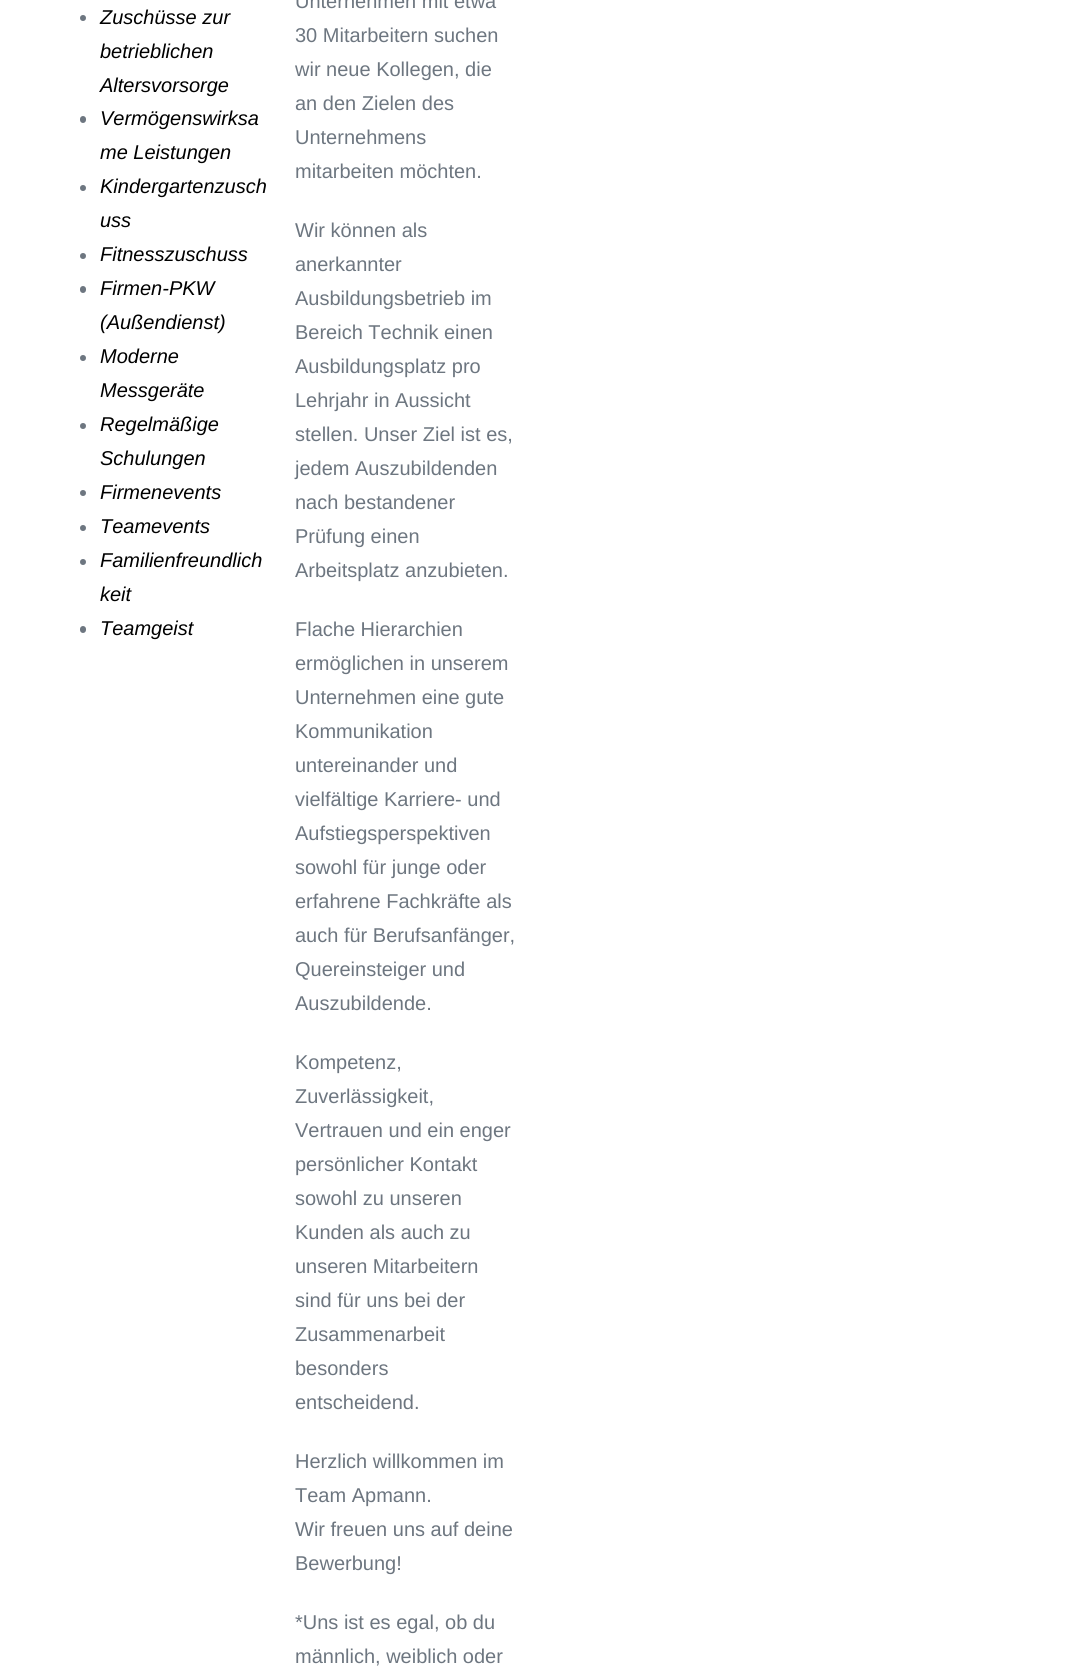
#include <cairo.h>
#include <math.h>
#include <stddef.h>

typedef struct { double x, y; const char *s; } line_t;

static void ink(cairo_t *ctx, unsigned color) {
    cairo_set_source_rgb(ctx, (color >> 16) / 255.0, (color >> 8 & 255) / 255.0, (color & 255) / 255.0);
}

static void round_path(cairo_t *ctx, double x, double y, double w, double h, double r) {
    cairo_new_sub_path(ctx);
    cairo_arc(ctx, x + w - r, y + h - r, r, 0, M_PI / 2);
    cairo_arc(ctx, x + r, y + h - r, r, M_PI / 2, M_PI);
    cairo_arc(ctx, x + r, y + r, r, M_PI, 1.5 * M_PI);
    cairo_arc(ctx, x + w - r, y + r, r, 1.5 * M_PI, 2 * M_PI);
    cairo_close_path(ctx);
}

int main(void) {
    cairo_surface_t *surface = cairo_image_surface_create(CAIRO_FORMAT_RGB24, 1081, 1666);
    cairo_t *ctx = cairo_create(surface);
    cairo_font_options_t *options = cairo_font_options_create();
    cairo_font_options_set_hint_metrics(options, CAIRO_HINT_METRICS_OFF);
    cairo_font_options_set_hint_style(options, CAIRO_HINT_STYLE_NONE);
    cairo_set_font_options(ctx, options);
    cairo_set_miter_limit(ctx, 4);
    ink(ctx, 0xFFFFFF);
    cairo_paint(ctx);
    ink(ctx, 0x6D7680);
    cairo_arc(ctx, 83, 18, 3, 0, 2 * M_PI);
    cairo_fill(ctx);
    cairo_select_font_face(ctx, "Liberation Sans", CAIRO_FONT_SLANT_ITALIC, CAIRO_FONT_WEIGHT_NORMAL);
    cairo_set_font_size(ctx, 20);
    ink(ctx, 0x000000);
    {
        static const line_t items[] = {
            {100, 24, "Zuschüsse zur"},
            {100, 58, "betrieblichen"},
            {100, 92, "Altersvorsorge"},
        };
        for (size_t i = 0; i < sizeof items / sizeof *items; i++) {
            cairo_move_to(ctx, items[i].x, items[i].y);
            cairo_show_text(ctx, items[i].s);
        }
    }
    ink(ctx, 0x6D7680);
    round_path(ctx, 80, 116, 6, 7, 3);
    cairo_fill(ctx);
    ink(ctx, 0x000000);
    cairo_move_to(ctx, 100, 125);
    cairo_show_text(ctx, "Vermögenswirksa");
    cairo_move_to(ctx, 100, 159);
    cairo_show_text(ctx, "me Leistungen");
    ink(ctx, 0x6D7680);
    cairo_new_path(ctx);
    cairo_arc(ctx, 83, 188, 3, 0, 2 * M_PI);
    cairo_fill(ctx);
    ink(ctx, 0x000000);
    cairo_move_to(ctx, 100, 193);
    cairo_show_text(ctx, "Kindergartenzusch");
    cairo_move_to(ctx, 100, 227);
    cairo_show_text(ctx, "uss");
    ink(ctx, 0x6D7680);
    cairo_new_path(ctx);
    cairo_arc(ctx, 83, 256, 3, 0, 2 * M_PI);
    cairo_fill(ctx);
    ink(ctx, 0x000000);
    cairo_move_to(ctx, 100, 261);
    cairo_show_text(ctx, "Fitnesszuschuss");
    ink(ctx, 0x6D7680);
    round_path(ctx, 80, 286, 6, 7, 3);
    cairo_fill(ctx);
    ink(ctx, 0x000000);
    cairo_move_to(ctx, 100, 295);
    cairo_show_text(ctx, "Firmen-PKW");
    cairo_move_to(ctx, 100, 329);
    cairo_show_text(ctx, "(Außendienst)");
    ink(ctx, 0x6D7680);
    cairo_new_path(ctx);
    cairo_arc(ctx, 83, 358, 3, 0, 2 * M_PI);
    cairo_fill(ctx);
    ink(ctx, 0x000000);
    cairo_move_to(ctx, 100, 363);
    cairo_show_text(ctx, "Moderne");
    cairo_move_to(ctx, 100, 397);
    cairo_show_text(ctx, "Messgeräte");
    ink(ctx, 0x6D7680);
    cairo_new_path(ctx);
    cairo_arc(ctx, 83, 426, 3, 0, 2 * M_PI);
    cairo_fill(ctx);
    ink(ctx, 0x000000);
    cairo_move_to(ctx, 100, 431);
    cairo_show_text(ctx, "Regelmäßige");
    cairo_move_to(ctx, 100, 465);
    cairo_show_text(ctx, "Schulungen");
    ink(ctx, 0x6D7680);
    cairo_new_path(ctx);
    cairo_arc(ctx, 83, 493, 3, 0, 2 * M_PI);
    cairo_fill(ctx);
    ink(ctx, 0x000000);
    cairo_move_to(ctx, 100, 499);
    cairo_show_text(ctx, "Firmenevents");
    ink(ctx, 0x6D7680);
    cairo_new_path(ctx);
    cairo_arc(ctx, 83, 528, 3, 0, 2 * M_PI);
    cairo_fill(ctx);
    ink(ctx, 0x000000);
    cairo_move_to(ctx, 100, 533);
    cairo_show_text(ctx, "Teamevents");
    ink(ctx, 0x6D7680);
    cairo_new_path(ctx);
    cairo_arc(ctx, 83, 562, 3, 0, 2 * M_PI);
    cairo_fill(ctx);
    ink(ctx, 0x000000);
    cairo_move_to(ctx, 100, 567);
    cairo_show_text(ctx, "Familienfreundlich");
    cairo_move_to(ctx, 100, 601);
    cairo_show_text(ctx, "keit");
    ink(ctx, 0x6D7680);
    round_path(ctx, 80, 626, 6, 7, 3);
    cairo_fill(ctx);
    ink(ctx, 0x000000);
    cairo_move_to(ctx, 100, 635);
    cairo_show_text(ctx, "Teamgeist");
    cairo_select_font_face(ctx, "Liberation Sans", CAIRO_FONT_SLANT_NORMAL, CAIRO_FONT_WEIGHT_NORMAL);
    ink(ctx, 0x6D7680);
    {
        static const line_t items[] = {
            {295, 8, "Unternehmen mit etwa"},
            {295, 42, "30 Mitarbeitern suchen"},
            {295, 76, "wir neue Kollegen, die"},
            {295, 110, "an den Zielen des"},
            {295, 144, "Unternehmens"},
            {295, 178, "mitarbeiten möchten."},
            {295, 237, "Wir können als"},
            {295, 271, "anerkannter"},
            {295, 305, "Ausbildungsbetrieb im"},
            {295, 339, "Bereich Technik einen"},
            {295, 373, "Ausbildungsplatz pro"},
            {295, 407, "Lehrjahr in Aussicht"},
            {295, 441, "stellen. Unser Ziel ist es,"},
            {295, 475, "jedem Auszubildenden"},
            {295, 509, "nach bestandener"},
            {295, 543, "Prüfung einen"},
            {295, 577, "Arbeitsplatz anzubieten."},
            {295, 636, "Flache Hierarchien"},
            {295, 670, "ermöglichen in unserem"},
            {295, 704, "Unternehmen eine gute"},
            {295, 738, "Kommunikation"},
            {295, 772, "untereinander und"},
            {295, 806, "vielfältige Karriere- und"},
            {295, 840, "Aufstiegsperspektiven"},
            {295, 874, "sowohl für junge oder"},
            {295, 908, "erfahrene Fachkräfte als"},
            {295, 942, "auch für Berufsanfänger,"},
            {295, 976, "Quereinsteiger und"},
            {295, 1010, "Auszubildende."},
            {295, 1069, "Kompetenz,"},
            {295, 1103, "Zuverlässigkeit,"},
            {295, 1137, "Vertrauen und ein enger"},
            {295, 1171, "persönlicher Kontakt"},
            {295, 1205, "sowohl zu unseren"},
            {295, 1239, "Kunden als auch zu"},
            {295, 1273, "unseren Mitarbeitern"},
            {295, 1307, "sind für uns bei der"},
            {295, 1341, "Zusammenarbeit"},
            {295, 1375, "besonders"},
            {295, 1409, "entscheidend."},
            {295, 1468, "Herzlich willkommen im"},
            {295, 1502, "Team Apmann."},
            {295, 1536, "Wir freuen uns auf deine"},
            {295, 1570, "Bewerbung!"},
            {295, 1629, "*Uns ist es egal, ob du"},
            {295, 1663, "männlich, weiblich oder"},
        };
        for (size_t i = 0; i < sizeof items / sizeof *items; i++) {
            cairo_move_to(ctx, items[i].x, items[i].y);
            cairo_show_text(ctx, items[i].s);
        }
    }
    cairo_surface_write_to_png(surface, "image.png");
    cairo_font_options_destroy(options);
    cairo_destroy(ctx);
    cairo_surface_destroy(surface);
    return 0;
}
